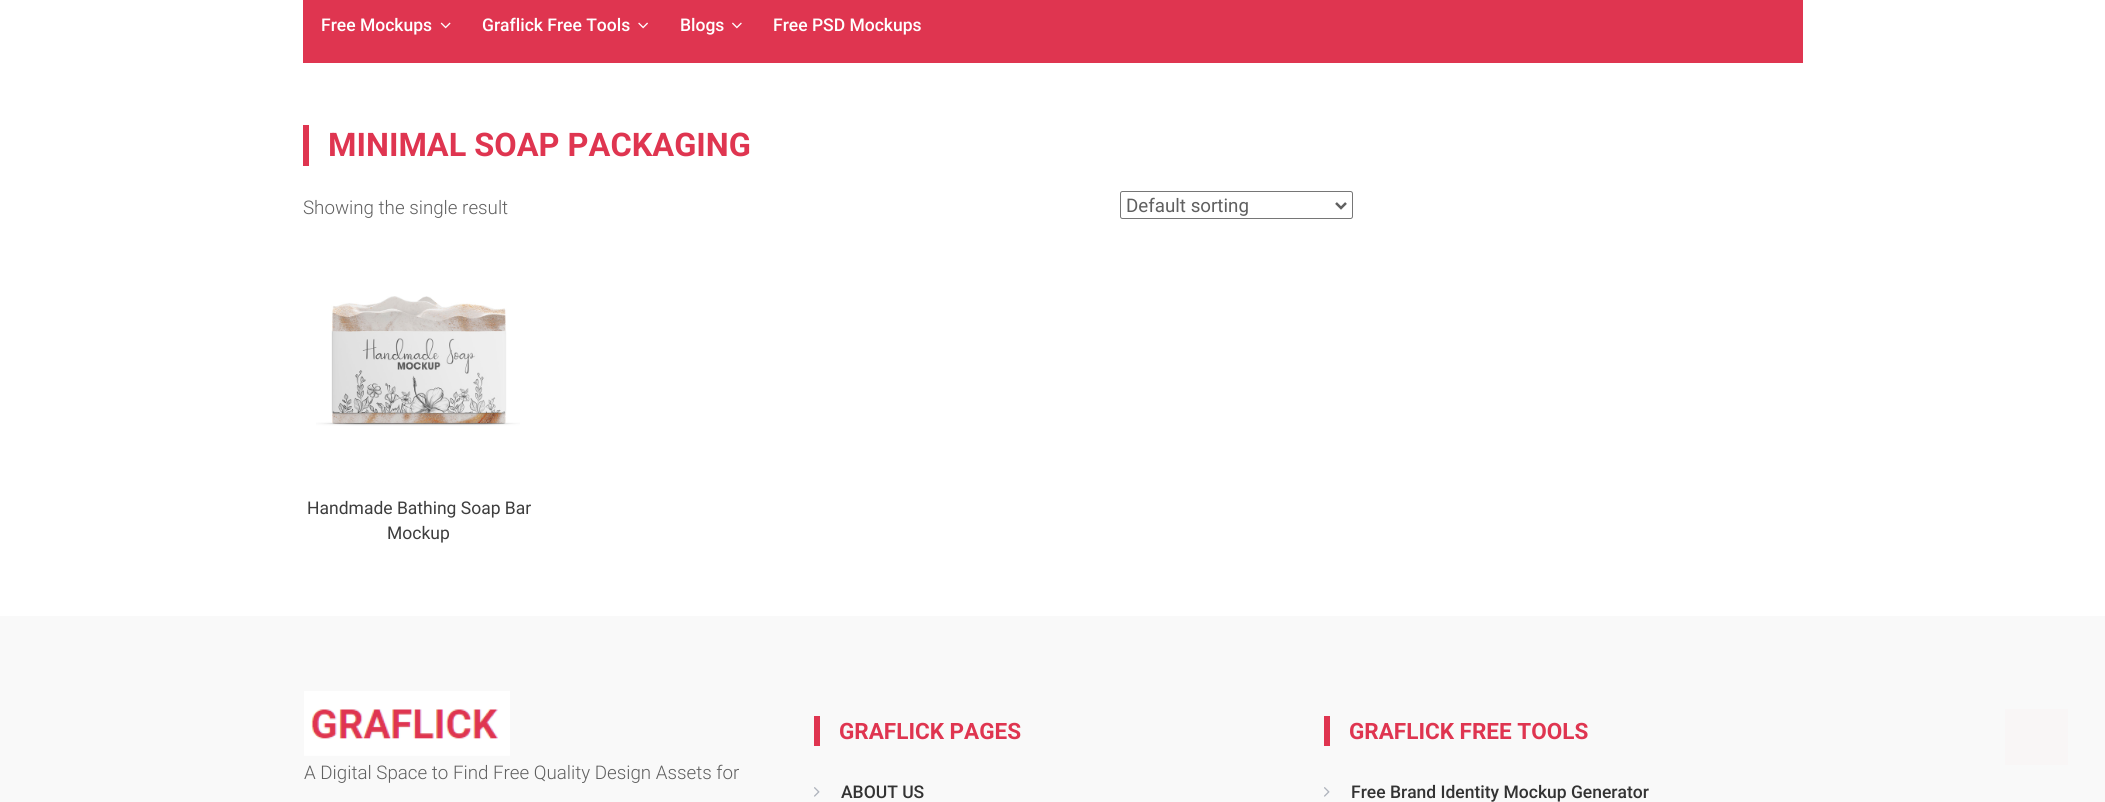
#include <cairo.h>
#include <math.h>
#include <stddef.h>


static void ink(cairo_t *ctx, unsigned color) {
    cairo_set_source_rgb(ctx, (color >> 16) / 255.0, (color >> 8 & 255) / 255.0, (color & 255) / 255.0);
}

static void round_path(cairo_t *ctx, double x, double y, double w, double h, double r) {
    cairo_new_sub_path(ctx);
    cairo_arc(ctx, x + w - r, y + h - r, r, 0, M_PI / 2);
    cairo_arc(ctx, x + r, y + h - r, r, M_PI / 2, M_PI);
    cairo_arc(ctx, x + r, y + r, r, M_PI, 1.5 * M_PI);
    cairo_arc(ctx, x + w - r, y + r, r, 1.5 * M_PI, 2 * M_PI);
    cairo_close_path(ctx);
}

static void paste(cairo_t *ctx, const char *path, double x, double y, double w, double h) {
    cairo_surface_t *image = cairo_image_surface_create_from_png(path);
    cairo_save(ctx);
    cairo_set_source_surface(ctx, image, x, y);
    cairo_rectangle(ctx, x, y, w, h);
    cairo_fill(ctx);
    cairo_restore(ctx);
    cairo_surface_destroy(image);
}

int main(void) {
    cairo_surface_t *surface = cairo_image_surface_create(CAIRO_FORMAT_RGB24, 2105, 802);
    cairo_t *ctx = cairo_create(surface);
    cairo_font_options_t *options = cairo_font_options_create();
    cairo_font_options_set_hint_metrics(options, CAIRO_HINT_METRICS_OFF);
    cairo_font_options_set_hint_style(options, CAIRO_HINT_STYLE_NONE);
    cairo_set_font_options(ctx, options);
    cairo_set_miter_limit(ctx, 4);
    ink(ctx, 0xFFFFFF);
    cairo_paint(ctx);
    ink(ctx, 0xDF3550);
    cairo_rectangle(ctx, 303, 0, 1500, 63);
    cairo_fill(ctx);
    cairo_select_font_face(ctx, "Roboto Medium", CAIRO_FONT_SLANT_NORMAL, CAIRO_FONT_WEIGHT_NORMAL);
    cairo_set_font_size(ctx, 17.5);
    ink(ctx, 0xFFFFFF);
    cairo_move_to(ctx, 321, 31);
    cairo_show_text(ctx, "Free Mockups");
    paste(ctx, "media/1.png", 440, 22, 11, 7);
    cairo_move_to(ctx, 482, 31);
    cairo_show_text(ctx, "Graflick Free Tools");
    paste(ctx, "media/2.png", 638, 22, 10, 7);
    cairo_move_to(ctx, 680, 31);
    cairo_show_text(ctx, "Blogs");
    paste(ctx, "media/3.png", 732, 22, 10, 7);
    cairo_move_to(ctx, 773, 31);
    cairo_show_text(ctx, "Free PSD Mockups");
    ink(ctx, 0xDF3550);
    cairo_rectangle(ctx, 303, 125, 6, 41);
    cairo_fill(ctx);
    cairo_select_font_face(ctx, "Roboto", CAIRO_FONT_SLANT_NORMAL, CAIRO_FONT_WEIGHT_BOLD);
    cairo_set_font_size(ctx, 32.5);
    cairo_move_to(ctx, 328, 156);
    cairo_show_text(ctx, "MINIMAL SOAP PACKAGING");
    cairo_select_font_face(ctx, "Roboto Light", CAIRO_FONT_SLANT_NORMAL, CAIRO_FONT_WEIGHT_NORMAL);
    cairo_set_font_size(ctx, 18.75);
    ink(ctx, 0x606060);
    cairo_move_to(ctx, 303, 214);
    cairo_show_text(ctx, "Showing the single result");
    round_path(ctx, 1120.5, 191.5, 232, 27, 2);
    ink(ctx, 0x767676);
    cairo_set_line_width(ctx, 1);
    cairo_stroke(ctx);
    cairo_new_path(ctx);
    cairo_move_to(ctx, 1336, 203);
    cairo_line_to(ctx, 1341, 208);
    cairo_line_to(ctx, 1346, 203);
    ink(ctx, 0x606060);
    cairo_set_line_width(ctx, 2.5);
    cairo_stroke(ctx);
    cairo_select_font_face(ctx, "Roboto", CAIRO_FONT_SLANT_NORMAL, CAIRO_FONT_WEIGHT_NORMAL);
    cairo_move_to(ctx, 1126, 212);
    cairo_show_text(ctx, "Default sorting");
    paste(ctx, "media/4.png", 316, 296, 204, 130);
    cairo_set_font_size(ctx, 17.5);
    ink(ctx, 0x3D3D3D);
    cairo_move_to(ctx, 307, 514);
    cairo_show_text(ctx, "Handmade Bathing Soap Bar");
    cairo_move_to(ctx, 387, 539);
    cairo_show_text(ctx, "Mockup");
    ink(ctx, 0xF9F9F9);
    cairo_rectangle(ctx, 0, 616, 2105, 186);
    cairo_fill(ctx);
    paste(ctx, "media/5.png", 304, 691, 206, 65);
    cairo_select_font_face(ctx, "Roboto Light", CAIRO_FONT_SLANT_NORMAL, CAIRO_FONT_WEIGHT_NORMAL);
    cairo_set_font_size(ctx, 18.75);
    ink(ctx, 0x606060);
    cairo_move_to(ctx, 304, 779);
    cairo_show_text(ctx, "A Digital Space to Find Free Quality Design Assets for");
    ink(ctx, 0xDF3550);
    cairo_rectangle(ctx, 814, 716, 6, 30);
    cairo_fill(ctx);
    cairo_select_font_face(ctx, "Roboto", CAIRO_FONT_SLANT_NORMAL, CAIRO_FONT_WEIGHT_BOLD);
    cairo_set_font_size(ctx, 22.5);
    cairo_move_to(ctx, 839, 739);
    cairo_show_text(ctx, "GRAFLICK PAGES");
    paste(ctx, "media/6.png", 814, 787, 6, 10);
    cairo_select_font_face(ctx, "Roboto Medium", CAIRO_FONT_SLANT_NORMAL, CAIRO_FONT_WEIGHT_NORMAL);
    cairo_set_font_size(ctx, 17.5);
    ink(ctx, 0x333333);
    cairo_move_to(ctx, 841, 798);
    cairo_show_text(ctx, "ABOUT US");
    ink(ctx, 0xDF3550);
    cairo_rectangle(ctx, 1324, 716, 6, 30);
    cairo_fill(ctx);
    cairo_select_font_face(ctx, "Roboto", CAIRO_FONT_SLANT_NORMAL, CAIRO_FONT_WEIGHT_BOLD);
    cairo_set_font_size(ctx, 22.5);
    cairo_move_to(ctx, 1349, 739);
    cairo_show_text(ctx, "GRAFLICK FREE TOOLS");
    paste(ctx, "media/6.png", 1324, 787, 6, 10);
    cairo_select_font_face(ctx, "Roboto Medium", CAIRO_FONT_SLANT_NORMAL, CAIRO_FONT_WEIGHT_NORMAL);
    cairo_set_font_size(ctx, 17.5);
    ink(ctx, 0x333333);
    cairo_move_to(ctx, 1351, 798);
    cairo_show_text(ctx, "Free Brand Identity Mockup Generator");
    ink(ctx, 0xF9F6F6);
    cairo_rectangle(ctx, 2005, 709, 63, 56);
    cairo_fill(ctx);
    cairo_surface_write_to_png(surface, "image.png");
    cairo_font_options_destroy(options);
    cairo_destroy(ctx);
    cairo_surface_destroy(surface);
    return 0;
}
